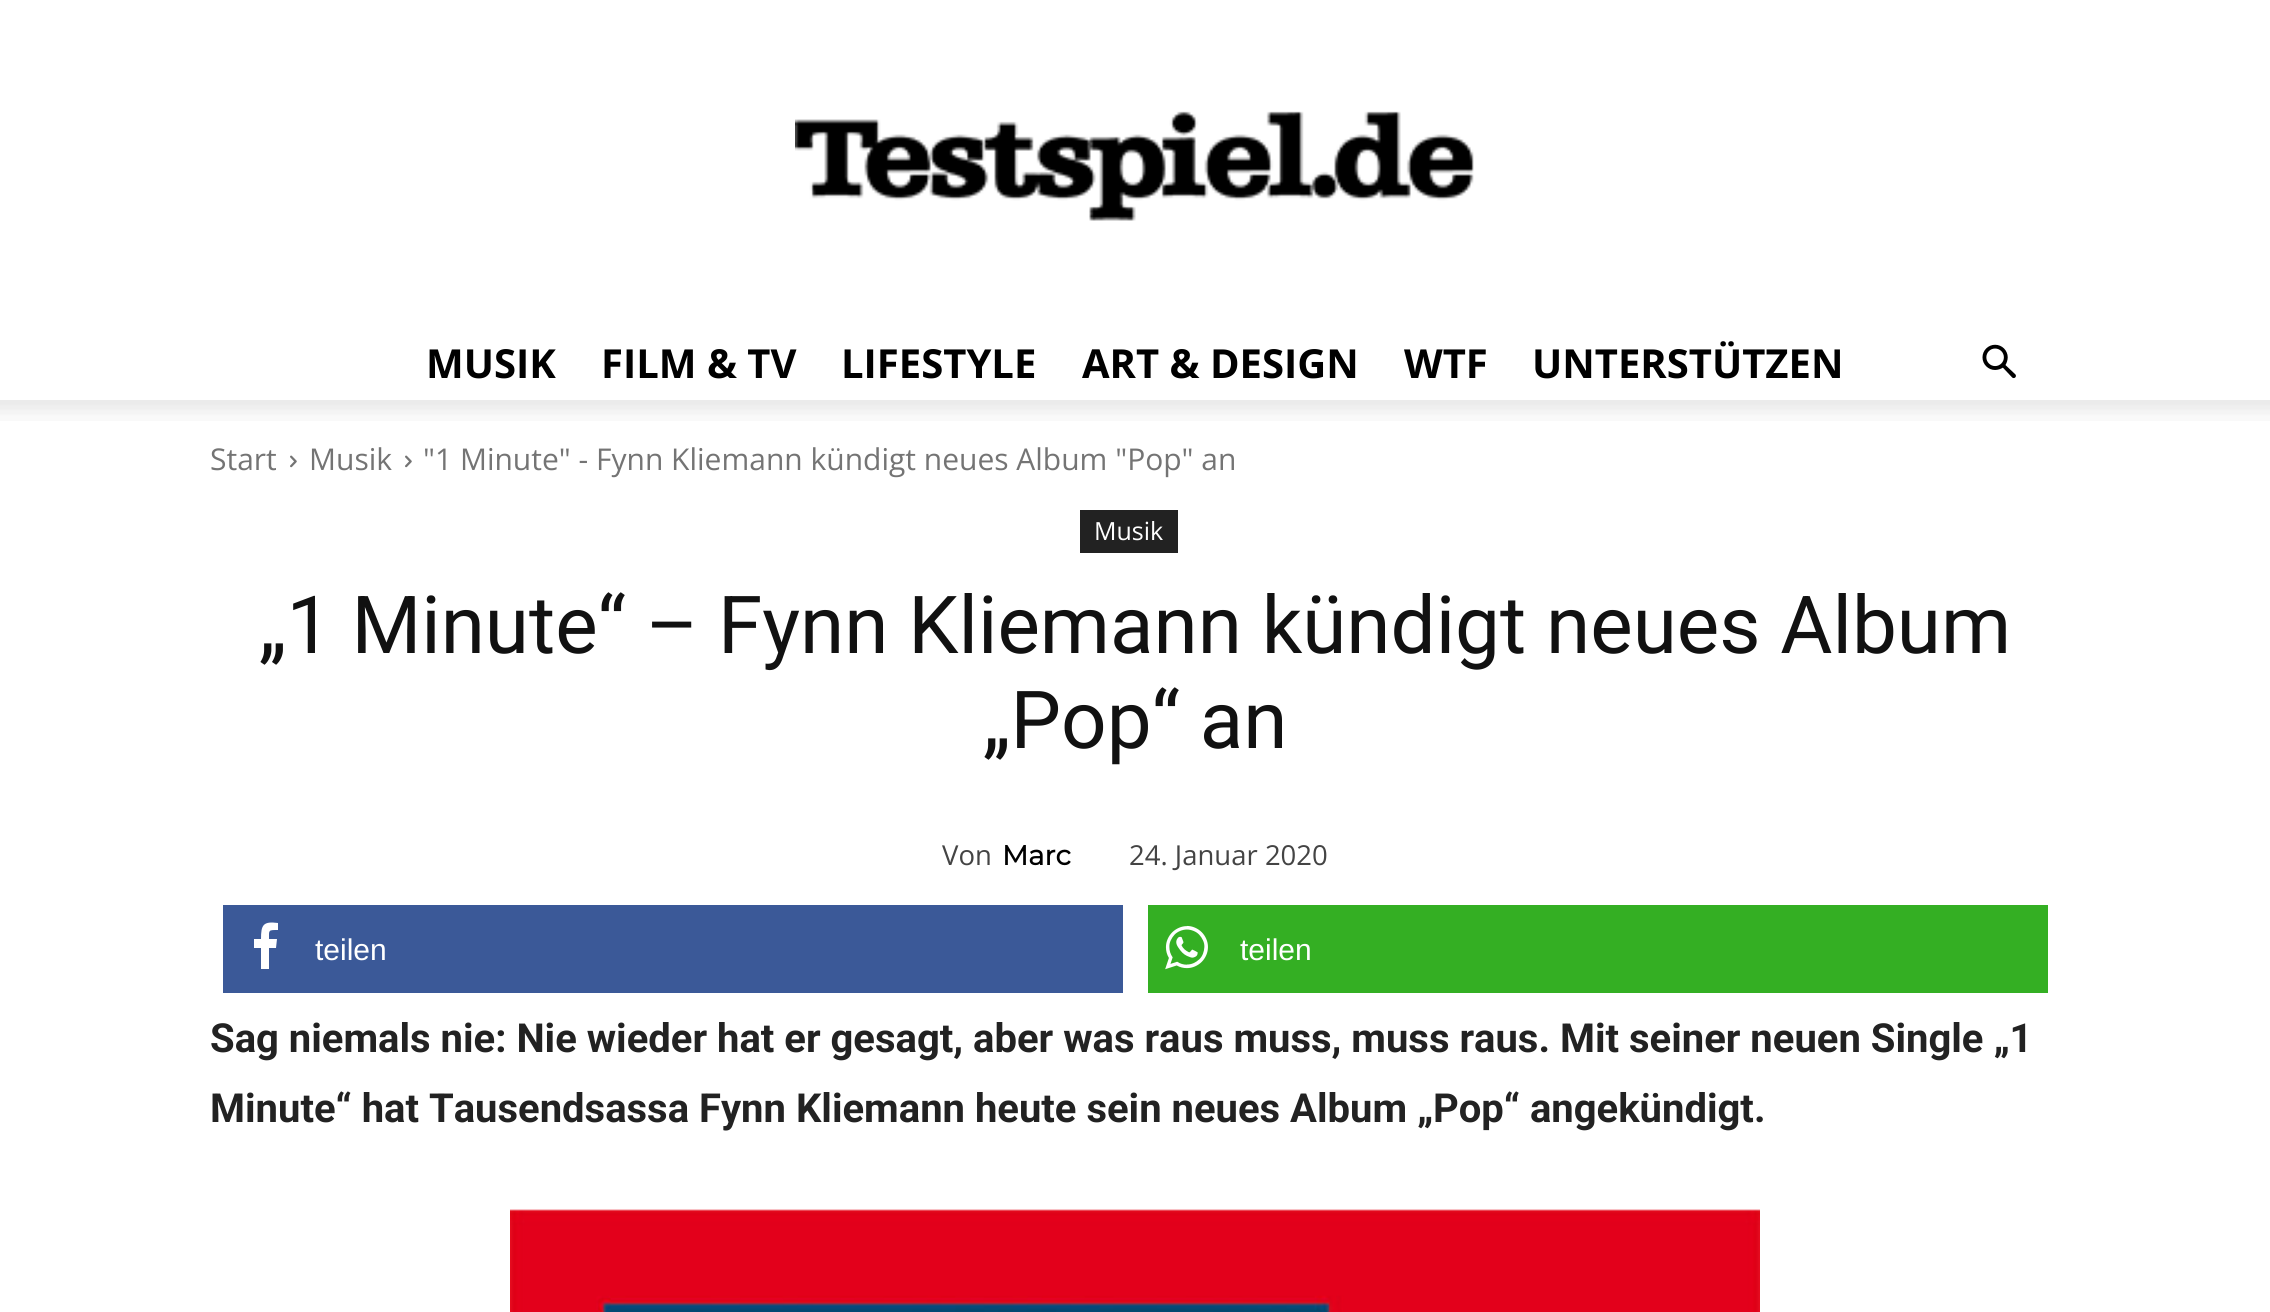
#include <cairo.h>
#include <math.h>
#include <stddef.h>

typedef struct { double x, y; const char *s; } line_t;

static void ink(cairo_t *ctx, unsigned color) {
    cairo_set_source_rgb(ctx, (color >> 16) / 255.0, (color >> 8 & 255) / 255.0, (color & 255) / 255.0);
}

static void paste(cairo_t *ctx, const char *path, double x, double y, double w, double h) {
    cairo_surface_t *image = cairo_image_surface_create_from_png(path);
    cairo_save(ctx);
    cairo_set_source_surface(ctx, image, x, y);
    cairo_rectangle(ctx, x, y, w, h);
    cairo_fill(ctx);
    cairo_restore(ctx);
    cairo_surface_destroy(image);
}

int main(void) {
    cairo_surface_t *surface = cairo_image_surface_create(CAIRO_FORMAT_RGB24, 2270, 1312);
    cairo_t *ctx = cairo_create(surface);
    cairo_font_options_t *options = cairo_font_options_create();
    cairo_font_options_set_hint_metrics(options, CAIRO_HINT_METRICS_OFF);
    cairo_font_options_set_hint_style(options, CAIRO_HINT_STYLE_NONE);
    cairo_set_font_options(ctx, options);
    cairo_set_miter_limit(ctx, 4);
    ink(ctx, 0xFFFFFF);
    cairo_paint(ctx);
    paste(ctx, "media/1.png", 795, 111, 679, 110);
    cairo_select_font_face(ctx, "Open Sans", CAIRO_FONT_SLANT_NORMAL, CAIRO_FONT_WEIGHT_BOLD);
    cairo_set_font_size(ctx, 40);
    ink(ctx, 0x000000);
    {
        static const line_t items[] = {
            {426, 378, "MUSIK"},
            {601, 378, "FILM & TV"},
            {841, 378, "LIFESTYLE"},
            {1082, 378, "ART & DESIGN"},
            {1404, 378, "WTF"},
            {1532, 378, "UNTERSTÜTZEN"},
        };
        for (size_t i = 0; i < sizeof items / sizeof *items; i++) {
            cairo_move_to(ctx, items[i].x, items[i].y);
            cairo_show_text(ctx, items[i].s);
        }
    }
    paste(ctx, "media/2.png", 1982, 344, 34, 35);
    paste(ctx, "media/3.png", 0, 400, 2270, 21);
    cairo_select_font_face(ctx, "Open Sans", CAIRO_FONT_SLANT_NORMAL, CAIRO_FONT_WEIGHT_NORMAL);
    cairo_set_font_size(ctx, 30);
    ink(ctx, 0x747474);
    cairo_move_to(ctx, 210, 470);
    cairo_show_text(ctx, "Start");
    paste(ctx, "media/4.png", 290, 455, 7, 13);
    cairo_move_to(ctx, 309, 470);
    cairo_show_text(ctx, "Musik");
    paste(ctx, "media/4.png", 405, 455, 7, 13);
    cairo_move_to(ctx, 423, 470);
    cairo_show_text(ctx, "\"1 Minute\" - Fynn Kliemann kündigt neues Album \"Pop\" an");
    ink(ctx, 0x222222);
    cairo_rectangle(ctx, 1080, 510, 98, 43);
    cairo_fill(ctx);
    cairo_set_font_size(ctx, 25);
    ink(ctx, 0xFFFFFF);
    cairo_move_to(ctx, 1094, 540);
    cairo_show_text(ctx, "Musik");
    cairo_select_font_face(ctx, "Roboto", CAIRO_FONT_SLANT_NORMAL, CAIRO_FONT_WEIGHT_NORMAL);
    cairo_set_font_size(ctx, 80);
    ink(ctx, 0x111111);
    cairo_move_to(ctx, 259, 653);
    cairo_show_text(ctx, "„1 Minute“ – Fynn Kliemann kündigt neues Album");
    cairo_move_to(ctx, 983, 748);
    cairo_show_text(ctx, "„Pop“ an");
    cairo_select_font_face(ctx, "Open Sans", CAIRO_FONT_SLANT_NORMAL, CAIRO_FONT_WEIGHT_NORMAL);
    cairo_set_font_size(ctx, 27.5);
    ink(ctx, 0x444444);
    cairo_move_to(ctx, 942, 865);
    cairo_show_text(ctx, "Von");
    cairo_select_font_face(ctx, "Montserrat", CAIRO_FONT_SLANT_NORMAL, CAIRO_FONT_WEIGHT_BOLD);
    ink(ctx, 0x000000);
    cairo_move_to(ctx, 1002, 865);
    cairo_show_text(ctx, "Marc");
    cairo_select_font_face(ctx, "Open Sans", CAIRO_FONT_SLANT_NORMAL, CAIRO_FONT_WEIGHT_NORMAL);
    ink(ctx, 0x444444);
    cairo_move_to(ctx, 1129, 865);
    cairo_show_text(ctx, "24. Januar 2020");
    ink(ctx, 0x3B5998);
    cairo_rectangle(ctx, 223, 905, 900, 88);
    cairo_fill(ctx);
    ink(ctx, 0xFFFFFF);
    cairo_new_path(ctx);
    cairo_move_to(ctx, 278, 923);
    cairo_line_to(ctx, 278, 930);
    cairo_curve_to(ctx, 268, 930, 269, 930, 269, 939);
    cairo_line_to(ctx, 277, 939);
    cairo_line_to(ctx, 276, 948);
    cairo_line_to(ctx, 269, 948);
    cairo_line_to(ctx, 269, 969);
    cairo_line_to(ctx, 261, 969);
    cairo_line_to(ctx, 261, 948);
    cairo_line_to(ctx, 254, 948);
    cairo_line_to(ctx, 254, 939);
    cairo_line_to(ctx, 261, 939);
    cairo_curve_to(ctx, 261, 925, 263, 921, 278, 923);
    cairo_close_path(ctx);
    cairo_fill(ctx);
    cairo_select_font_face(ctx, "Liberation Sans", CAIRO_FONT_SLANT_NORMAL, CAIRO_FONT_WEIGHT_NORMAL);
    cairo_set_font_size(ctx, 30);
    cairo_move_to(ctx, 315, 960);
    cairo_show_text(ctx, "teilen");
    ink(ctx, 0x34AF23);
    cairo_rectangle(ctx, 1148, 905, 900, 88);
    cairo_fill(ctx);
    paste(ctx, "media/5.png", 1165, 925, 43, 45);
    ink(ctx, 0xFFFFFF);
    cairo_move_to(ctx, 1240, 960);
    cairo_show_text(ctx, "teilen");
    cairo_select_font_face(ctx, "Roboto", CAIRO_FONT_SLANT_NORMAL, CAIRO_FONT_WEIGHT_BOLD);
    cairo_set_font_size(ctx, 40);
    ink(ctx, 0x222222);
    cairo_move_to(ctx, 210, 1052);
    cairo_show_text(ctx, "Sag niemals nie: Nie wieder hat er gesagt, aber was raus muss, muss raus. Mit seiner neuen Single „1");
    cairo_move_to(ctx, 210, 1122);
    cairo_show_text(ctx, "Minute“ hat Tausendsassa Fynn Kliemann heute sein neues Album „Pop“ angekündigt.");
    paste(ctx, "media/6.png", 510, 1209, 1250, 103);
    cairo_surface_write_to_png(surface, "image.png");
    cairo_font_options_destroy(options);
    cairo_destroy(ctx);
    cairo_surface_destroy(surface);
    return 0;
}
